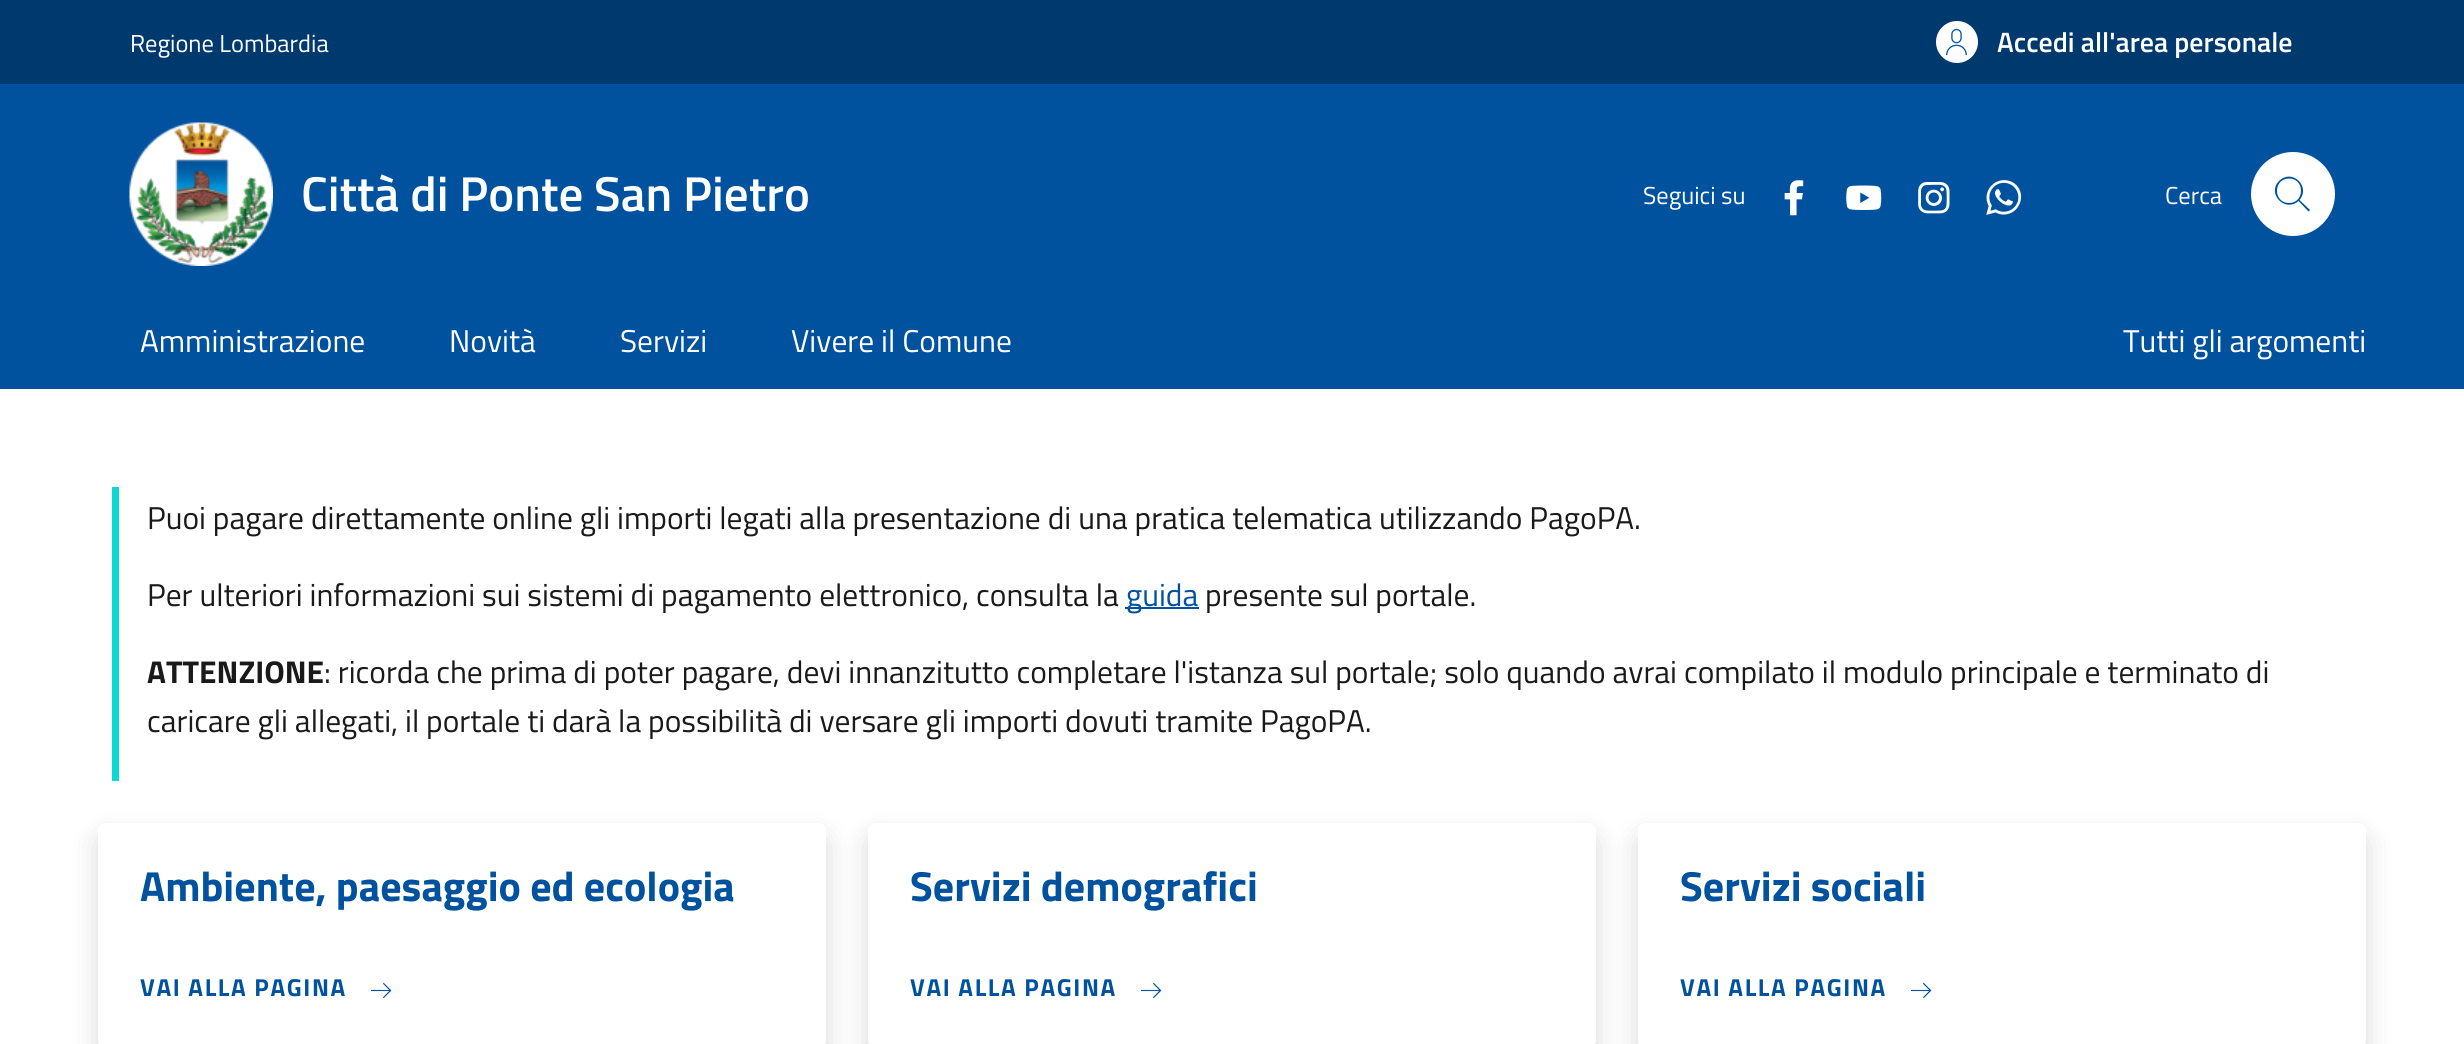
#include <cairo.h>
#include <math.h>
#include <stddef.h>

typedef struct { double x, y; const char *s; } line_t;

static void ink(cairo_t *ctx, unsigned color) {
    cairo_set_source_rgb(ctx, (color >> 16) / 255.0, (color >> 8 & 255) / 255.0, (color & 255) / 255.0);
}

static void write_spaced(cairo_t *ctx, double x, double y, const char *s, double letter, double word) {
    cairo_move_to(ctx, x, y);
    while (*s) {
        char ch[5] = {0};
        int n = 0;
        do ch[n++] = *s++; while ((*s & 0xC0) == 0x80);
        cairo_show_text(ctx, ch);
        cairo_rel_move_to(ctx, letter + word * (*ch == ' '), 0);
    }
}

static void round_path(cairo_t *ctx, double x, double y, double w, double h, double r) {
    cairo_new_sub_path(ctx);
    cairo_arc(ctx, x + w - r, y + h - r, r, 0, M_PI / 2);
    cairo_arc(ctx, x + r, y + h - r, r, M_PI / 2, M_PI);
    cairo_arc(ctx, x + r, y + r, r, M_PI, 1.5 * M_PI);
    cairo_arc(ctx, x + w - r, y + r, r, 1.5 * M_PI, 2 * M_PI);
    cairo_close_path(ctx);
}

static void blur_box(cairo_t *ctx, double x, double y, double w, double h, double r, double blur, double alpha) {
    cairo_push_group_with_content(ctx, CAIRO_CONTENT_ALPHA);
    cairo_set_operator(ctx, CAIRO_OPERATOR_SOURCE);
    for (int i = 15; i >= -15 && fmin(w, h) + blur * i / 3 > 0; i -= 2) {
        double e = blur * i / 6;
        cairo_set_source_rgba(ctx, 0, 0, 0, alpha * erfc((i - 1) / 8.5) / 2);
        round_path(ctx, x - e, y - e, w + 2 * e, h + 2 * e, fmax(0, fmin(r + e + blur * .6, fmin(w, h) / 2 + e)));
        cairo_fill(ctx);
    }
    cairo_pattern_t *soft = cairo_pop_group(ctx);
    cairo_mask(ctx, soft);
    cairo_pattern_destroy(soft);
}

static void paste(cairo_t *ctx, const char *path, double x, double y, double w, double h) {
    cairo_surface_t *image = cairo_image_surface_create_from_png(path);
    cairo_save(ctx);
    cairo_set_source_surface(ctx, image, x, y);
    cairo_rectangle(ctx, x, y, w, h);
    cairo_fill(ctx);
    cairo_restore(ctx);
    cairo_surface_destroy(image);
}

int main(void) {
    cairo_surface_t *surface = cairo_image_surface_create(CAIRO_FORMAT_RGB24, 2464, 1044);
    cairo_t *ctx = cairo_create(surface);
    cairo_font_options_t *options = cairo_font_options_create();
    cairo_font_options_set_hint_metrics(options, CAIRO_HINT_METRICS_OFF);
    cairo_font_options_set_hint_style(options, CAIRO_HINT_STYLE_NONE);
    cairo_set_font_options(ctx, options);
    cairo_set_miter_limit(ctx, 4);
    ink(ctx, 0xFFFFFF);
    cairo_paint(ctx);
    ink(ctx, 0x00396E);
    cairo_rectangle(ctx, 0, 0, 2464, 84);
    cairo_fill(ctx);
    cairo_select_font_face(ctx, "Titillium Web", CAIRO_FONT_SLANT_NORMAL, CAIRO_FONT_WEIGHT_NORMAL);
    cairo_set_font_size(ctx, 24.5);
    ink(ctx, 0xFFFFFF);
    cairo_move_to(ctx, 130, 52);
    cairo_show_text(ctx, "Regione Lombardia");
    cairo_new_path(ctx);
    cairo_arc(ctx, 1957, 42, 21, 0, 2 * M_PI);
    cairo_fill(ctx);
    paste(ctx, "media/1.png", 1946, 28, 21, 28);
    cairo_select_font_face(ctx, "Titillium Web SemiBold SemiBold", CAIRO_FONT_SLANT_NORMAL, CAIRO_FONT_WEIGHT_NORMAL);
    cairo_set_font_size(ctx, 28);
    cairo_move_to(ctx, 1997, 52);
    cairo_show_text(ctx, "Accedi all'area personale");
    ink(ctx, 0x00529E);
    cairo_rectangle(ctx, 0, 84, 2464, 305);
    cairo_fill(ctx);
    paste(ctx, "media/2.png", 129, 122, 144, 144);
    cairo_set_font_size(ctx, 49);
    ink(ctx, 0xFFFFFF);
    cairo_move_to(ctx, 301, 211);
    cairo_show_text(ctx, "Città di Ponte San Pietro");
    cairo_select_font_face(ctx, "Titillium Web", CAIRO_FONT_SLANT_NORMAL, CAIRO_FONT_WEIGHT_NORMAL);
    cairo_set_font_size(ctx, 24.5);
    cairo_move_to(ctx, 1643, 204);
    cairo_show_text(ctx, "Seguici su");
    paste(ctx, "media/3.png", 1784, 180, 20, 36);
    paste(ctx, "media/4.png", 1846, 185, 36, 25);
    paste(ctx, "media/5.png", 1918, 182, 32, 32);
    paste(ctx, "media/6.png", 1986, 180, 36, 35);
    cairo_move_to(ctx, 2165, 204);
    cairo_show_text(ctx, "Cerca");
    cairo_new_path(ctx);
    cairo_arc(ctx, 2293, 194, 42, 0, 2 * M_PI);
    cairo_fill(ctx);
    ink(ctx, 0x00529E);
    cairo_new_path(ctx);
    cairo_move_to(ctx, 2310, 210);
    cairo_line_to(ctx, 2299.5, 200);
    cairo_curve_to(ctx, 2311, 186.5, 2292, 168, 2279, 181);
    cairo_curve_to(ctx, 2266.5, 193.5, 2285, 213, 2298.5, 201);
    cairo_line_to(ctx, 2308.5, 211.5);
    cairo_close_path(ctx);
    cairo_move_to(ctx, 2289, 203);
    cairo_curve_to(ctx, 2273, 203, 2273, 178.5, 2289, 178.5);
    cairo_curve_to(ctx, 2305, 178.5, 2305, 203, 2289, 203);
    cairo_close_path(ctx);
    cairo_fill(ctx);
    cairo_set_font_size(ctx, 31.5);
    ink(ctx, 0xFFFFFF);
    {
        static const line_t items[] = {
            {140, 352, "Amministrazione"},
            {449, 352, "Novità"},
            {620, 352, "Servizi"},
            {791, 352, "Vivere il Comune"},
            {2123, 352, "Tutti gli argomenti"},
        };
        for (size_t i = 0; i < sizeof items / sizeof *items; i++) {
            cairo_move_to(ctx, items[i].x, items[i].y);
            cairo_show_text(ctx, items[i].s);
        }
    }
    ink(ctx, 0x0BD9D2);
    cairo_rectangle(ctx, 112, 487, 7, 294);
    cairo_fill(ctx);
    ink(ctx, 0x1A1A1A);
    cairo_move_to(ctx, 147, 529);
    cairo_show_text(ctx, "Puoi pagare direttamente online gli importi legati alla presentazione di una pratica telematica utilizzando PagoPA.");
    cairo_move_to(ctx, 147, 606);
    cairo_show_text(ctx, "Per ulteriori informazioni sui sistemi di pagamento elettronico, consulta la");
    ink(ctx, 0x00529E);
    cairo_rectangle(ctx, 1125, 607, 74, 2);
    cairo_fill(ctx);
    cairo_move_to(ctx, 1126, 606);
    cairo_show_text(ctx, "guida");
    ink(ctx, 0x1A1A1A);
    cairo_move_to(ctx, 1205, 606);
    cairo_show_text(ctx, "presente sul portale.");
    cairo_select_font_face(ctx, "Titillium Web", CAIRO_FONT_SLANT_NORMAL, CAIRO_FONT_WEIGHT_BOLD);
    cairo_move_to(ctx, 147, 683);
    cairo_show_text(ctx, "ATTENZIONE");
    cairo_select_font_face(ctx, "Titillium Web", CAIRO_FONT_SLANT_NORMAL, CAIRO_FONT_WEIGHT_NORMAL);
    cairo_move_to(ctx, 324, 683);
    cairo_show_text(ctx, ": ricorda che prima di poter pagare, devi innanzitutto completare l'istanza sul portale; solo quando avrai compilato il modulo principale e terminato di");
    cairo_move_to(ctx, 147, 732);
    cairo_show_text(ctx, "caricare gli allegati, il portale ti darà la possibilità di versare gli importi dovuti tramite PagoPA.");
    ink(ctx, 0x000000);
    blur_box(ctx, 98, 837, 728, 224, 7, 14, 0.15);
    ink(ctx, 0xFFFFFF);
    round_path(ctx, 98, 823, 728, 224, 7);
    cairo_fill(ctx);
    cairo_select_font_face(ctx, "Titillium Web", CAIRO_FONT_SLANT_NORMAL, CAIRO_FONT_WEIGHT_BOLD);
    cairo_set_font_size(ctx, 42);
    ink(ctx, 0x00529E);
    cairo_move_to(ctx, 140, 901);
    cairo_show_text(ctx, "Ambiente, paesaggio ed ecologia");
    cairo_set_font_size(ctx, 24.5);
    write_spaced(ctx, 140, 996, "VAI ALLA PAGINA", 1.6, 0);
    paste(ctx, "media/7.png", 371, 982, 21, 17);
    ink(ctx, 0x000000);
    blur_box(ctx, 868, 837, 728, 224, 7, 14, 0.15);
    ink(ctx, 0xFFFFFF);
    round_path(ctx, 868, 823, 728, 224, 7);
    cairo_fill(ctx);
    cairo_set_font_size(ctx, 42);
    ink(ctx, 0x00529E);
    cairo_move_to(ctx, 910, 901);
    cairo_show_text(ctx, "Servizi demografici");
    cairo_set_font_size(ctx, 24.5);
    write_spaced(ctx, 910, 996, "VAI ALLA PAGINA", 1.6, 0);
    paste(ctx, "media/7.png", 1141, 982, 21, 17);
    ink(ctx, 0x000000);
    blur_box(ctx, 1638, 837, 728, 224, 7, 14, 0.15);
    ink(ctx, 0xFFFFFF);
    round_path(ctx, 1638, 823, 728, 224, 7);
    cairo_fill(ctx);
    cairo_set_font_size(ctx, 42);
    ink(ctx, 0x00529E);
    cairo_move_to(ctx, 1680, 901);
    cairo_show_text(ctx, "Servizi sociali");
    cairo_set_font_size(ctx, 24.5);
    write_spaced(ctx, 1680, 996, "VAI ALLA PAGINA", 1.6, 0);
    paste(ctx, "media/7.png", 1911, 982, 21, 17);
    cairo_surface_write_to_png(surface, "image.png");
    cairo_font_options_destroy(options);
    cairo_destroy(ctx);
    cairo_surface_destroy(surface);
    return 0;
}
